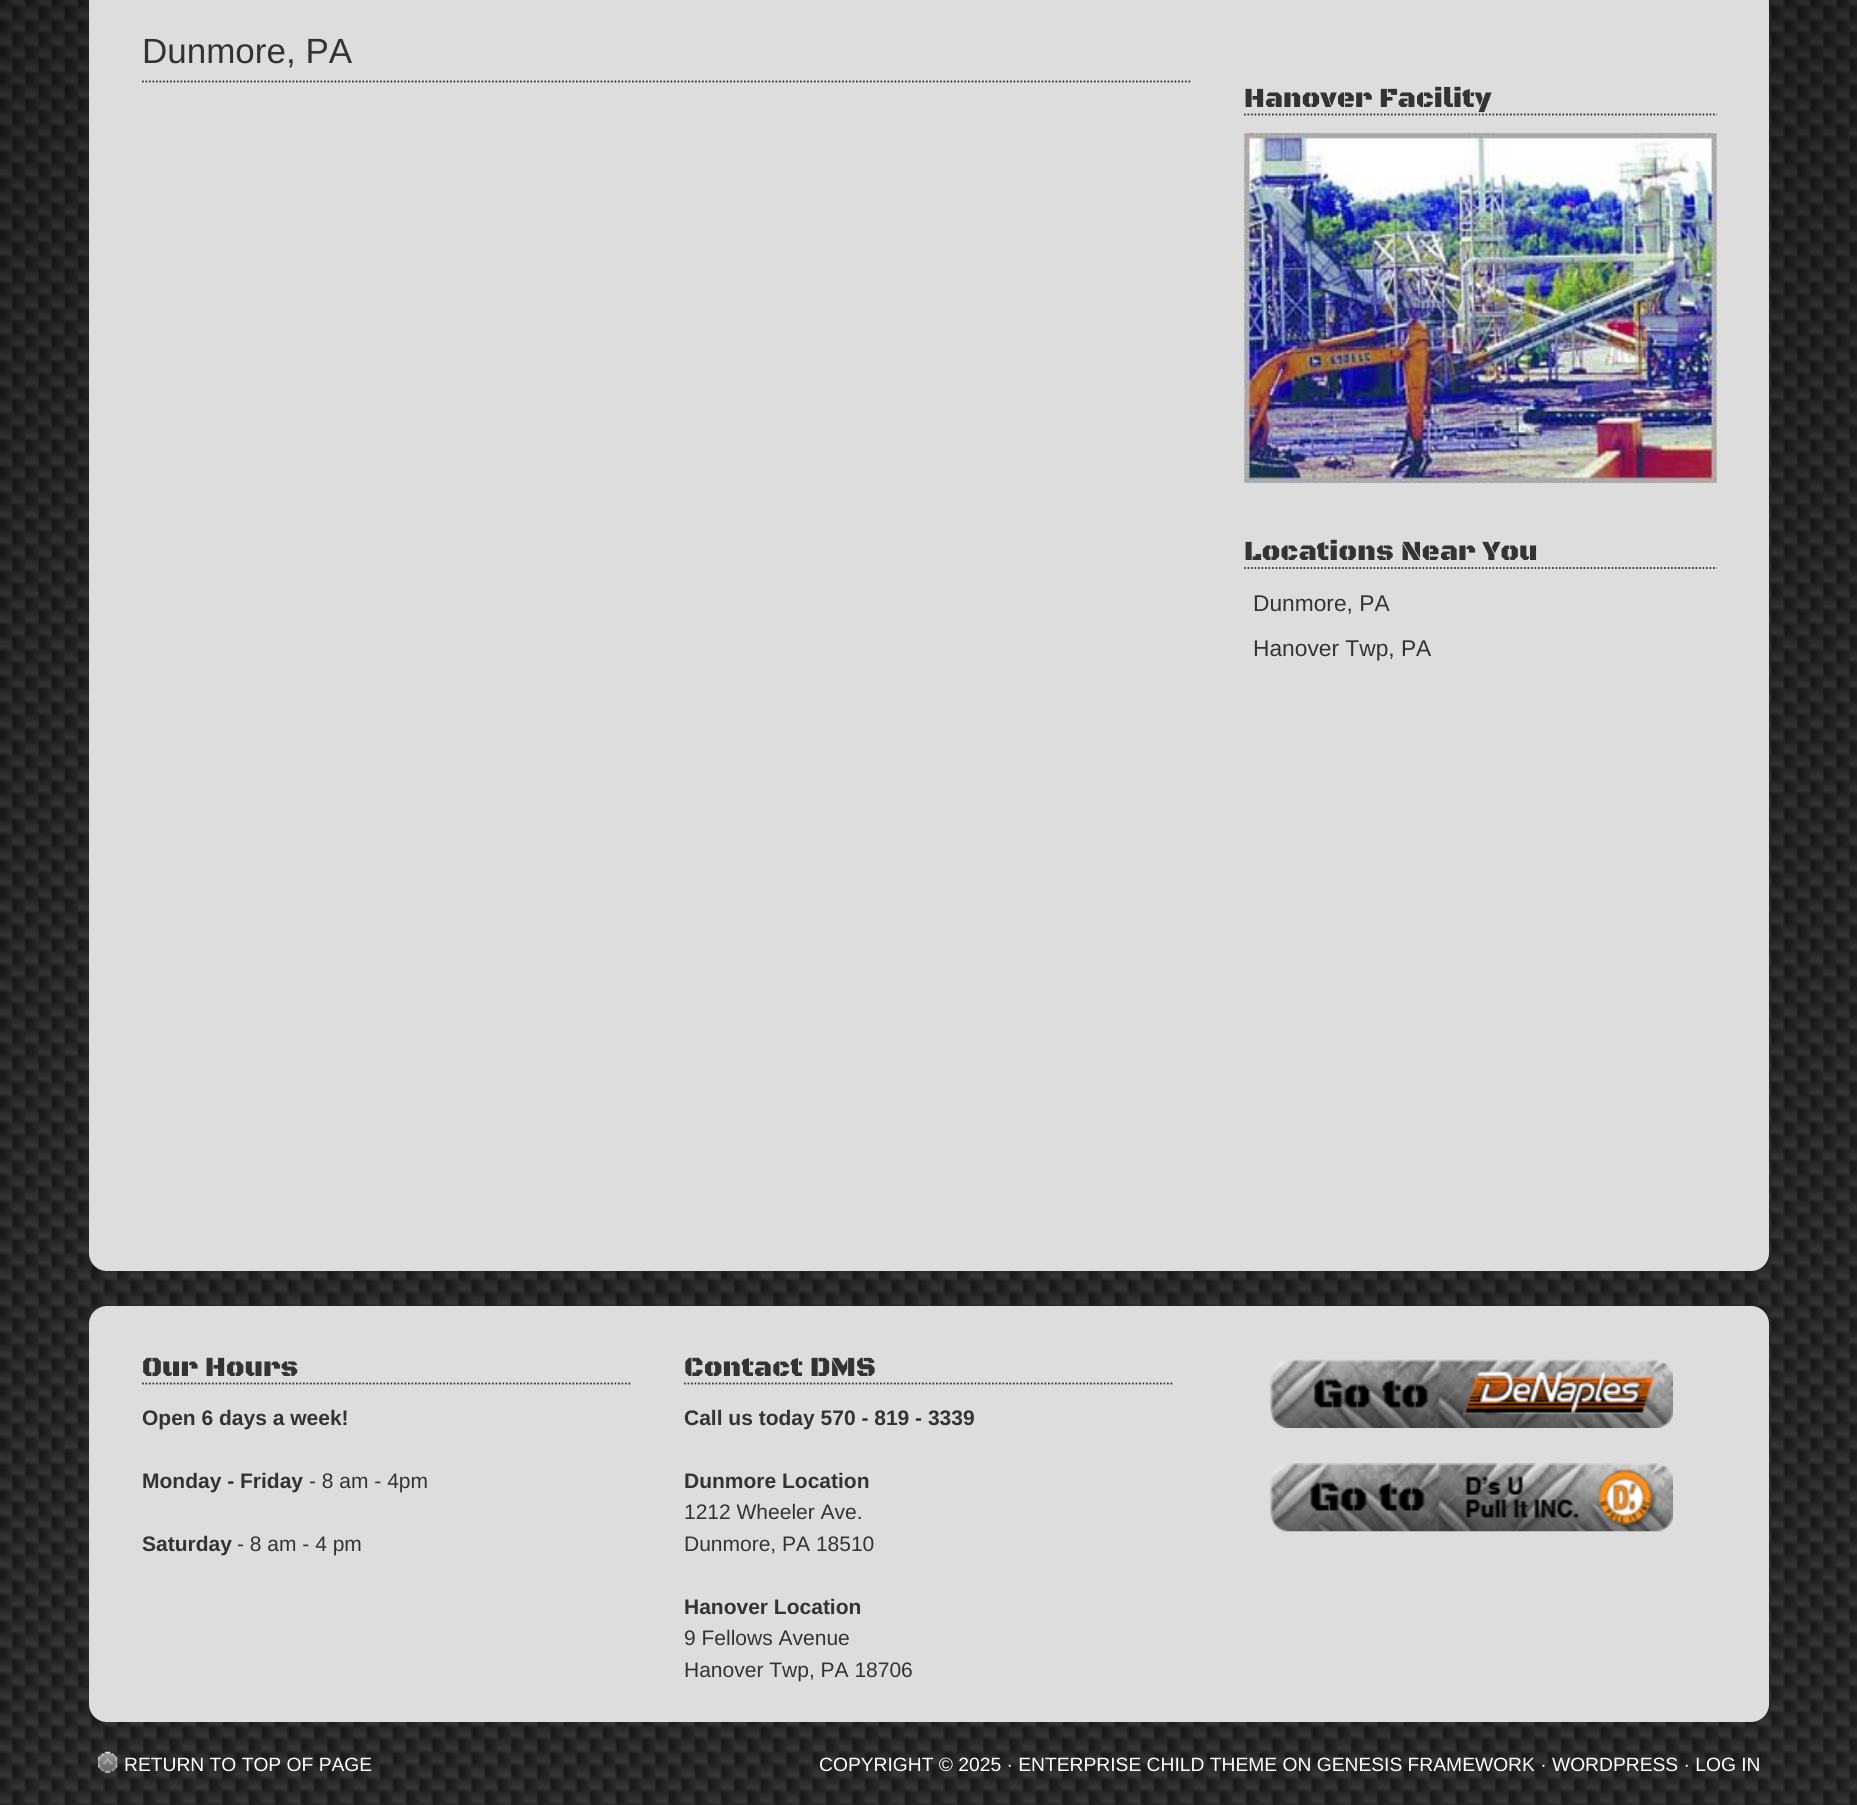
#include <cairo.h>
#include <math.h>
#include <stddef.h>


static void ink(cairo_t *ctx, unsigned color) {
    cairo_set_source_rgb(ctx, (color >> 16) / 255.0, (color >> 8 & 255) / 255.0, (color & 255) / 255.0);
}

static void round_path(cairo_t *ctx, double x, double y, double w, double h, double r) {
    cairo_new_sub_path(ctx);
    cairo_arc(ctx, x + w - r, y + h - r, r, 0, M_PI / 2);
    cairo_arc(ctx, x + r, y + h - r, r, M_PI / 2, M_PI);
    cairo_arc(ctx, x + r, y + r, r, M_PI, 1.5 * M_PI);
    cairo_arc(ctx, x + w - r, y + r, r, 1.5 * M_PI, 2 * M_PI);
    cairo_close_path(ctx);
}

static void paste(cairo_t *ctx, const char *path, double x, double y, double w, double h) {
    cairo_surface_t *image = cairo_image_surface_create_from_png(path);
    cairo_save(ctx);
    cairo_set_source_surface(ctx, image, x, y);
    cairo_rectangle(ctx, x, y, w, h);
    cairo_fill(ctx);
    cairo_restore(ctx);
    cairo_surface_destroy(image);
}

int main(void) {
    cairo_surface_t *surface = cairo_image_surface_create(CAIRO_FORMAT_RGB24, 1857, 1805);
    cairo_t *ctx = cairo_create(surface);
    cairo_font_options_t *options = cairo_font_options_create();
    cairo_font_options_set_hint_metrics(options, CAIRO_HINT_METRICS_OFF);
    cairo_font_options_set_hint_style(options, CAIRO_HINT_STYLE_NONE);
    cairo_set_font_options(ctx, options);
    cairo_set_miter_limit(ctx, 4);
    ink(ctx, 0xFFFFFF);
    cairo_paint(ctx);
    paste(ctx, "media/1.png", 0, 0, 1857, 1805);
    ink(ctx, 0xDDDDDD);
    round_path(ctx, 90, -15, 1678, 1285, 17);
    cairo_fill_preserve(ctx);
    cairo_stroke(ctx);
    cairo_new_path(ctx);
    cairo_move_to(ctx, 142, 81.5);
    cairo_line_to(ctx, 1192, 81.5);
    ink(ctx, 0x333333);
    cairo_set_line_width(ctx, 1.8);
    cairo_set_dash(ctx, (double[]){1.75, 1.75}, 2, 0);
    cairo_stroke(ctx);
    cairo_select_font_face(ctx, "Liberation Sans", CAIRO_FONT_SLANT_NORMAL, CAIRO_FONT_WEIGHT_NORMAL);
    cairo_set_font_size(ctx, 35);
    cairo_move_to(ctx, 142, 63);
    cairo_show_text(ctx, "Dunmore, PA");
    cairo_new_path(ctx);
    cairo_move_to(ctx, 1244, 114.5);
    cairo_line_to(ctx, 1717, 114.5);
    cairo_stroke(ctx);
    cairo_select_font_face(ctx, "Black Ops One Black", CAIRO_FONT_SLANT_NORMAL, CAIRO_FONT_WEIGHT_NORMAL);
    cairo_set_font_size(ctx, 28);
    cairo_move_to(ctx, 1244, 107);
    cairo_show_text(ctx, "Hanover Facility");
    paste(ctx, "media/2.png", 1244, 133, 473, 350);
    cairo_new_path(ctx);
    cairo_move_to(ctx, 1244, 568);
    cairo_line_to(ctx, 1717, 568);
    cairo_stroke(ctx);
    cairo_move_to(ctx, 1244, 560);
    cairo_show_text(ctx, "Locations Near You");
    cairo_select_font_face(ctx, "Liberation Sans", CAIRO_FONT_SLANT_NORMAL, CAIRO_FONT_WEIGHT_NORMAL);
    cairo_set_font_size(ctx, 22.75);
    cairo_move_to(ctx, 1253, 611);
    cairo_show_text(ctx, "Dunmore, PA");
    cairo_move_to(ctx, 1253, 656);
    cairo_show_text(ctx, "Hanover Twp, PA");
    ink(ctx, 0xDDDDDD);
    round_path(ctx, 90, 1307, 1678, 414, 17);
    cairo_fill_preserve(ctx);
    cairo_set_line_width(ctx, 2);
    cairo_set_dash(ctx, NULL, 0, 0);
    cairo_stroke(ctx);
    cairo_new_path(ctx);
    cairo_move_to(ctx, 142, 1383.5);
    cairo_line_to(ctx, 632, 1383.5);
    ink(ctx, 0x333333);
    cairo_set_line_width(ctx, 1.8);
    cairo_set_dash(ctx, (double[]){1.75, 1.75}, 2, 0);
    cairo_stroke(ctx);
    cairo_select_font_face(ctx, "Black Ops One Black", CAIRO_FONT_SLANT_NORMAL, CAIRO_FONT_WEIGHT_NORMAL);
    cairo_set_font_size(ctx, 28);
    cairo_move_to(ctx, 142, 1376);
    cairo_show_text(ctx, "Our Hours");
    cairo_select_font_face(ctx, "Liberation Sans", CAIRO_FONT_SLANT_NORMAL, CAIRO_FONT_WEIGHT_BOLD);
    cairo_set_font_size(ctx, 21);
    cairo_move_to(ctx, 142, 1425);
    cairo_show_text(ctx, "Open 6 days a week!");
    cairo_move_to(ctx, 142, 1488);
    cairo_show_text(ctx, "Monday - Friday");
    cairo_select_font_face(ctx, "Liberation Sans", CAIRO_FONT_SLANT_NORMAL, CAIRO_FONT_WEIGHT_NORMAL);
    cairo_move_to(ctx, 309, 1488);
    cairo_show_text(ctx, "- 8 am - 4pm");
    cairo_select_font_face(ctx, "Liberation Sans", CAIRO_FONT_SLANT_NORMAL, CAIRO_FONT_WEIGHT_BOLD);
    cairo_move_to(ctx, 142, 1551);
    cairo_show_text(ctx, "Saturday");
    cairo_select_font_face(ctx, "Liberation Sans", CAIRO_FONT_SLANT_NORMAL, CAIRO_FONT_WEIGHT_NORMAL);
    cairo_move_to(ctx, 237, 1551);
    cairo_show_text(ctx, "- 8 am - 4 pm");
    cairo_new_path(ctx);
    cairo_move_to(ctx, 684, 1383.5);
    cairo_line_to(ctx, 1174, 1383.5);
    cairo_stroke(ctx);
    cairo_select_font_face(ctx, "Black Ops One Black", CAIRO_FONT_SLANT_NORMAL, CAIRO_FONT_WEIGHT_NORMAL);
    cairo_set_font_size(ctx, 28);
    cairo_move_to(ctx, 684, 1376);
    cairo_show_text(ctx, "Contact DMS");
    cairo_select_font_face(ctx, "Liberation Sans", CAIRO_FONT_SLANT_NORMAL, CAIRO_FONT_WEIGHT_BOLD);
    cairo_set_font_size(ctx, 21);
    cairo_move_to(ctx, 684, 1425);
    cairo_show_text(ctx, "Call us today 570 - 819 - 3339");
    cairo_move_to(ctx, 684, 1488);
    cairo_show_text(ctx, "Dunmore Location");
    cairo_select_font_face(ctx, "Liberation Sans", CAIRO_FONT_SLANT_NORMAL, CAIRO_FONT_WEIGHT_NORMAL);
    cairo_move_to(ctx, 684, 1519);
    cairo_show_text(ctx, "1212 Wheeler Ave.");
    cairo_move_to(ctx, 684, 1551);
    cairo_show_text(ctx, "Dunmore, PA 18510");
    cairo_select_font_face(ctx, "Liberation Sans", CAIRO_FONT_SLANT_NORMAL, CAIRO_FONT_WEIGHT_BOLD);
    cairo_move_to(ctx, 684, 1614);
    cairo_show_text(ctx, "Hanover Location");
    cairo_select_font_face(ctx, "Liberation Sans", CAIRO_FONT_SLANT_NORMAL, CAIRO_FONT_WEIGHT_NORMAL);
    cairo_move_to(ctx, 684, 1645);
    cairo_show_text(ctx, "9 Fellows Avenue");
    cairo_move_to(ctx, 684, 1677);
    cairo_show_text(ctx, "Hanover Twp, PA 18706");
    paste(ctx, "media/3.png", 1270, 1359, 403, 69);
    paste(ctx, "media/4.png", 1270, 1463, 403, 69);
    paste(ctx, "media/5.png", 98, 1751, 20, 22);
    cairo_set_font_size(ctx, 19.25);
    ink(ctx, 0xFFFFFF);
    cairo_move_to(ctx, 124, 1771);
    cairo_show_text(ctx, "RETURN TO TOP OF PAGE");
    cairo_move_to(ctx, 819, 1771);
    cairo_show_text(ctx, "COPYRIGHT © 2025 · ENTERPRISE CHILD THEME ON GENESIS FRAMEWORK · WORDPRESS · LOG IN");
    cairo_surface_write_to_png(surface, "image.png");
    cairo_font_options_destroy(options);
    cairo_destroy(ctx);
    cairo_surface_destroy(surface);
    return 0;
}
